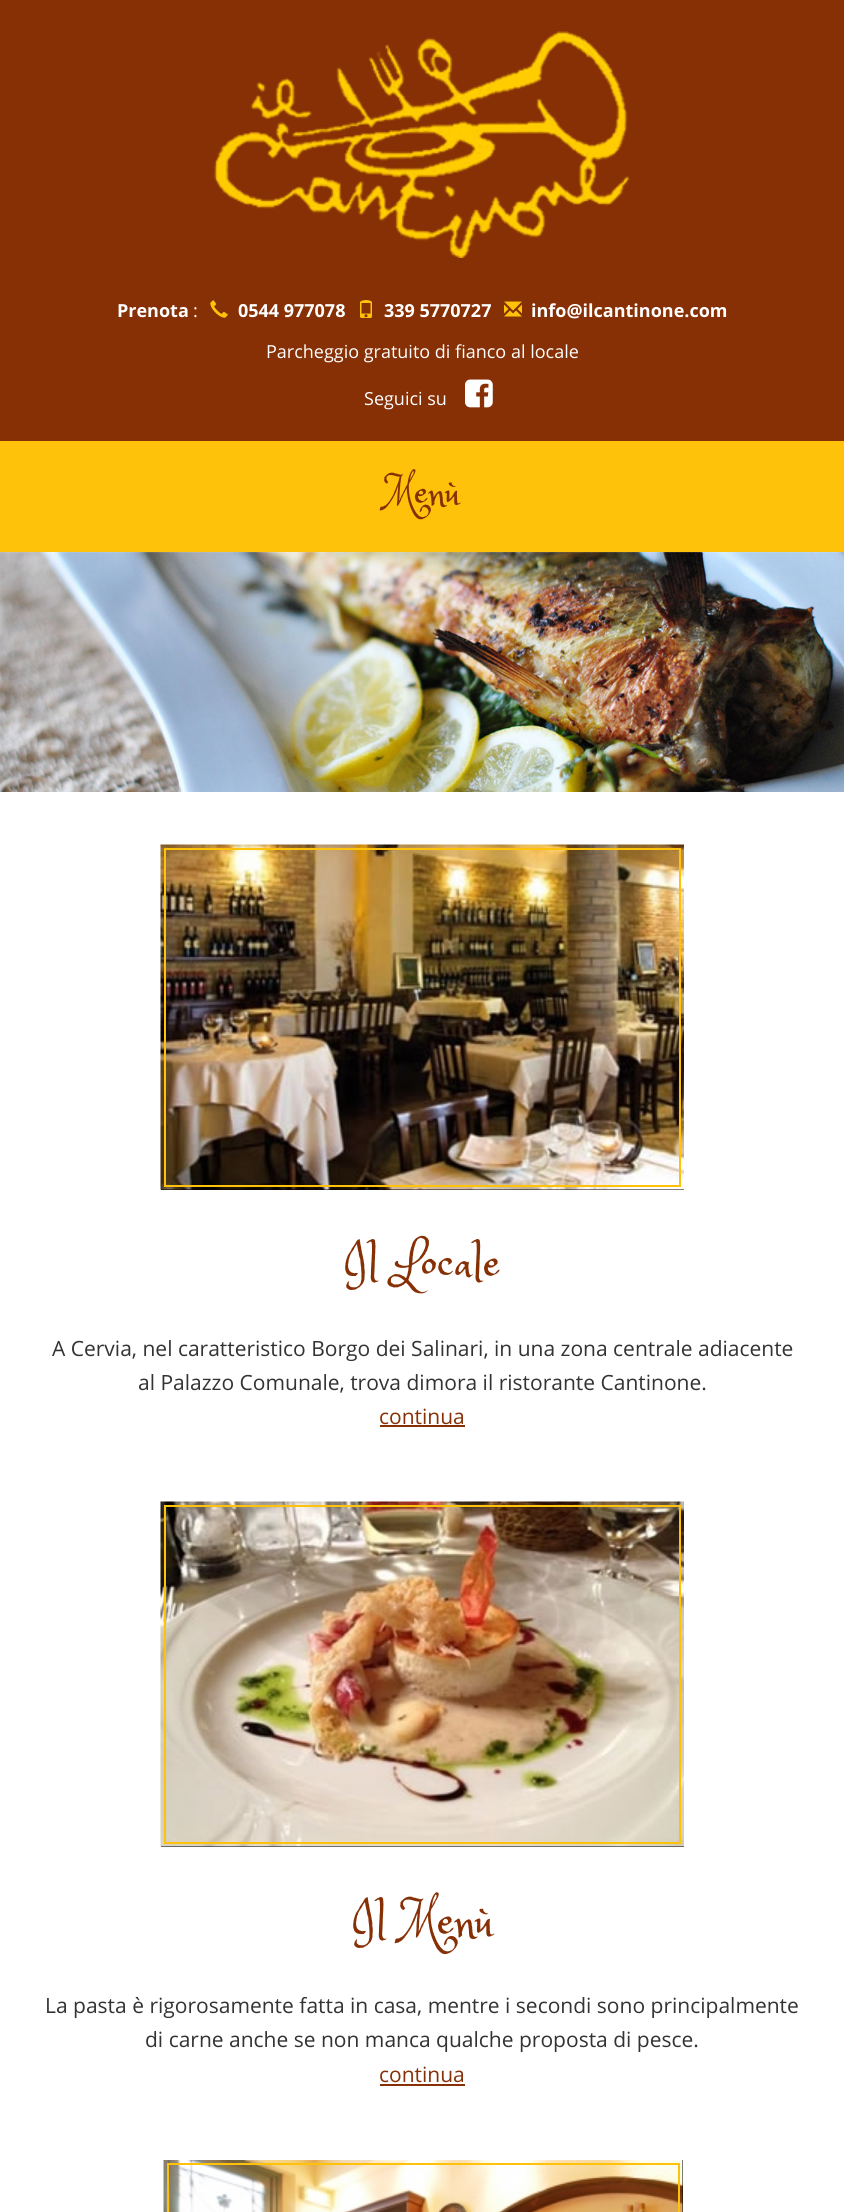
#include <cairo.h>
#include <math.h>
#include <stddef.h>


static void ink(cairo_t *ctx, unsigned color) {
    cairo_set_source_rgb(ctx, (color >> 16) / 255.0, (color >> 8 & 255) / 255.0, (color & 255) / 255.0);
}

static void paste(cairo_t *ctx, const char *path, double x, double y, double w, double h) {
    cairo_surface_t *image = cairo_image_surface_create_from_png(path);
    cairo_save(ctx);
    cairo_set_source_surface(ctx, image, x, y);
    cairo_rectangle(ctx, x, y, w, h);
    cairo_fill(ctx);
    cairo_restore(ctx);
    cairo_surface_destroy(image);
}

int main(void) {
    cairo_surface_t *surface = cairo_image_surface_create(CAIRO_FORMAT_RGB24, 844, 2212);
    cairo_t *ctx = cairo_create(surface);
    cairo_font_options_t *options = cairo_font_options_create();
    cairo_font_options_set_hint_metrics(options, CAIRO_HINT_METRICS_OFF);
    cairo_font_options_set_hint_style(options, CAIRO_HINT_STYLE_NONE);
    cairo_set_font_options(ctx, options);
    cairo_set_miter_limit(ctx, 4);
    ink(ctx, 0xFFFFFF);
    cairo_paint(ctx);
    ink(ctx, 0x873005);
    cairo_rectangle(ctx, 0, 0, 844, 441);
    cairo_fill(ctx);
    paste(ctx, "media/1.png", 214, 31, 416, 227);
    cairo_select_font_face(ctx, "Open Sans", CAIRO_FONT_SLANT_NORMAL, CAIRO_FONT_WEIGHT_BOLD);
    cairo_set_font_size(ctx, 18);
    ink(ctx, 0xFFFFFF);
    cairo_move_to(ctx, 117, 317);
    cairo_show_text(ctx, "Prenota");
    cairo_select_font_face(ctx, "Open Sans", CAIRO_FONT_SLANT_NORMAL, CAIRO_FONT_WEIGHT_NORMAL);
    cairo_move_to(ctx, 193, 317);
    cairo_show_text(ctx, ":");
    paste(ctx, "media/2.png", 210, 300, 18, 18);
    cairo_select_font_face(ctx, "Open Sans", CAIRO_FONT_SLANT_NORMAL, CAIRO_FONT_WEIGHT_BOLD);
    cairo_move_to(ctx, 238, 317);
    cairo_show_text(ctx, "0544 977078");
    paste(ctx, "media/3.png", 360, 300, 12, 18);
    cairo_move_to(ctx, 384, 317);
    cairo_show_text(ctx, "339 5770727");
    paste(ctx, "media/4.png", 504, 301, 18, 16);
    cairo_move_to(ctx, 531, 317);
    cairo_show_text(ctx, "info@ilcantinone.com");
    cairo_select_font_face(ctx, "Open Sans", CAIRO_FONT_SLANT_NORMAL, CAIRO_FONT_WEIGHT_NORMAL);
    cairo_move_to(ctx, 266, 358);
    cairo_show_text(ctx, "Parcheggio gratuito di fianco al locale");
    cairo_move_to(ctx, 364, 405);
    cairo_show_text(ctx, "Seguici su");
    paste(ctx, "media/5.png", 465, 379, 28, 29);
    ink(ctx, 0xFEC20A);
    cairo_rectangle(ctx, 0, 441, 844, 111);
    cairo_fill(ctx);
    cairo_select_font_face(ctx, "Princess Sofia", CAIRO_FONT_SLANT_NORMAL, CAIRO_FONT_WEIGHT_NORMAL);
    cairo_set_font_size(ctx, 39);
    ink(ctx, 0x873005);
    cairo_move_to(ctx, 385, 503);
    cairo_show_text(ctx, "Menù");
    paste(ctx, "media/6.png", 0, 552, 844, 240);
    ink(ctx, 0x000000);
    cairo_rectangle(ctx, 161, 1189, 523, 1);
    cairo_fill(ctx);
    paste(ctx, "media/7.png", 160, 844, 524, 346);
    cairo_rectangle(ctx, 165, 849, 515, 337);
    ink(ctx, 0xFEC20A);
    cairo_stroke(ctx);
    cairo_set_font_size(ctx, 48);
    ink(ctx, 0x873005);
    cairo_move_to(ctx, 343, 1276);
    cairo_show_text(ctx, "Il Locale");
    cairo_select_font_face(ctx, "Open Sans", CAIRO_FONT_SLANT_NORMAL, CAIRO_FONT_WEIGHT_NORMAL);
    cairo_set_font_size(ctx, 21);
    ink(ctx, 0x333333);
    cairo_move_to(ctx, 52, 1356);
    cairo_show_text(ctx, "A Cervia, nel caratteristico Borgo dei Salinari, in una zona centrale adiacente");
    cairo_move_to(ctx, 138, 1390);
    cairo_show_text(ctx, "al Palazzo Comunale, trova dimora il ristorante Cantinone.");
    ink(ctx, 0x873005);
    cairo_move_to(ctx, 379, 1424);
    cairo_show_text(ctx, "continua");
    cairo_rectangle(ctx, 380, 1425, 85, 2);
    cairo_fill(ctx);
    ink(ctx, 0x000000);
    cairo_rectangle(ctx, 161, 1846, 523, 1);
    cairo_fill(ctx);
    paste(ctx, "media/8.png", 160, 1501, 524, 346);
    cairo_rectangle(ctx, 165, 1506, 515, 337);
    ink(ctx, 0xFEC20A);
    cairo_stroke(ctx);
    cairo_select_font_face(ctx, "Princess Sofia", CAIRO_FONT_SLANT_NORMAL, CAIRO_FONT_WEIGHT_NORMAL);
    cairo_set_font_size(ctx, 48);
    ink(ctx, 0x873005);
    cairo_move_to(ctx, 351, 1934);
    cairo_show_text(ctx, "Il Menù");
    cairo_select_font_face(ctx, "Open Sans", CAIRO_FONT_SLANT_NORMAL, CAIRO_FONT_WEIGHT_NORMAL);
    cairo_set_font_size(ctx, 21);
    ink(ctx, 0x333333);
    cairo_move_to(ctx, 45, 2013);
    cairo_show_text(ctx, "La pasta è rigorosamente fatta in casa, mentre i secondi sono principalmente");
    cairo_move_to(ctx, 145, 2047);
    cairo_show_text(ctx, "di carne anche se non manca qualche proposta di pesce.");
    ink(ctx, 0x873005);
    cairo_move_to(ctx, 379, 2082);
    cairo_show_text(ctx, "continua");
    cairo_rectangle(ctx, 380, 2084, 85, 2);
    cairo_fill(ctx);
    ink(ctx, 0x000000);
    cairo_rectangle(ctx, 682, 2160, 1, 52);
    cairo_fill(ctx);
    paste(ctx, "media/9.png", 163, 2160, 520, 52);
    cairo_rectangle(ctx, 168, 2164, 511, 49);
    ink(ctx, 0xFEC20A);
    cairo_stroke(ctx);
    cairo_surface_write_to_png(surface, "image.png");
    cairo_font_options_destroy(options);
    cairo_destroy(ctx);
    cairo_surface_destroy(surface);
    return 0;
}
